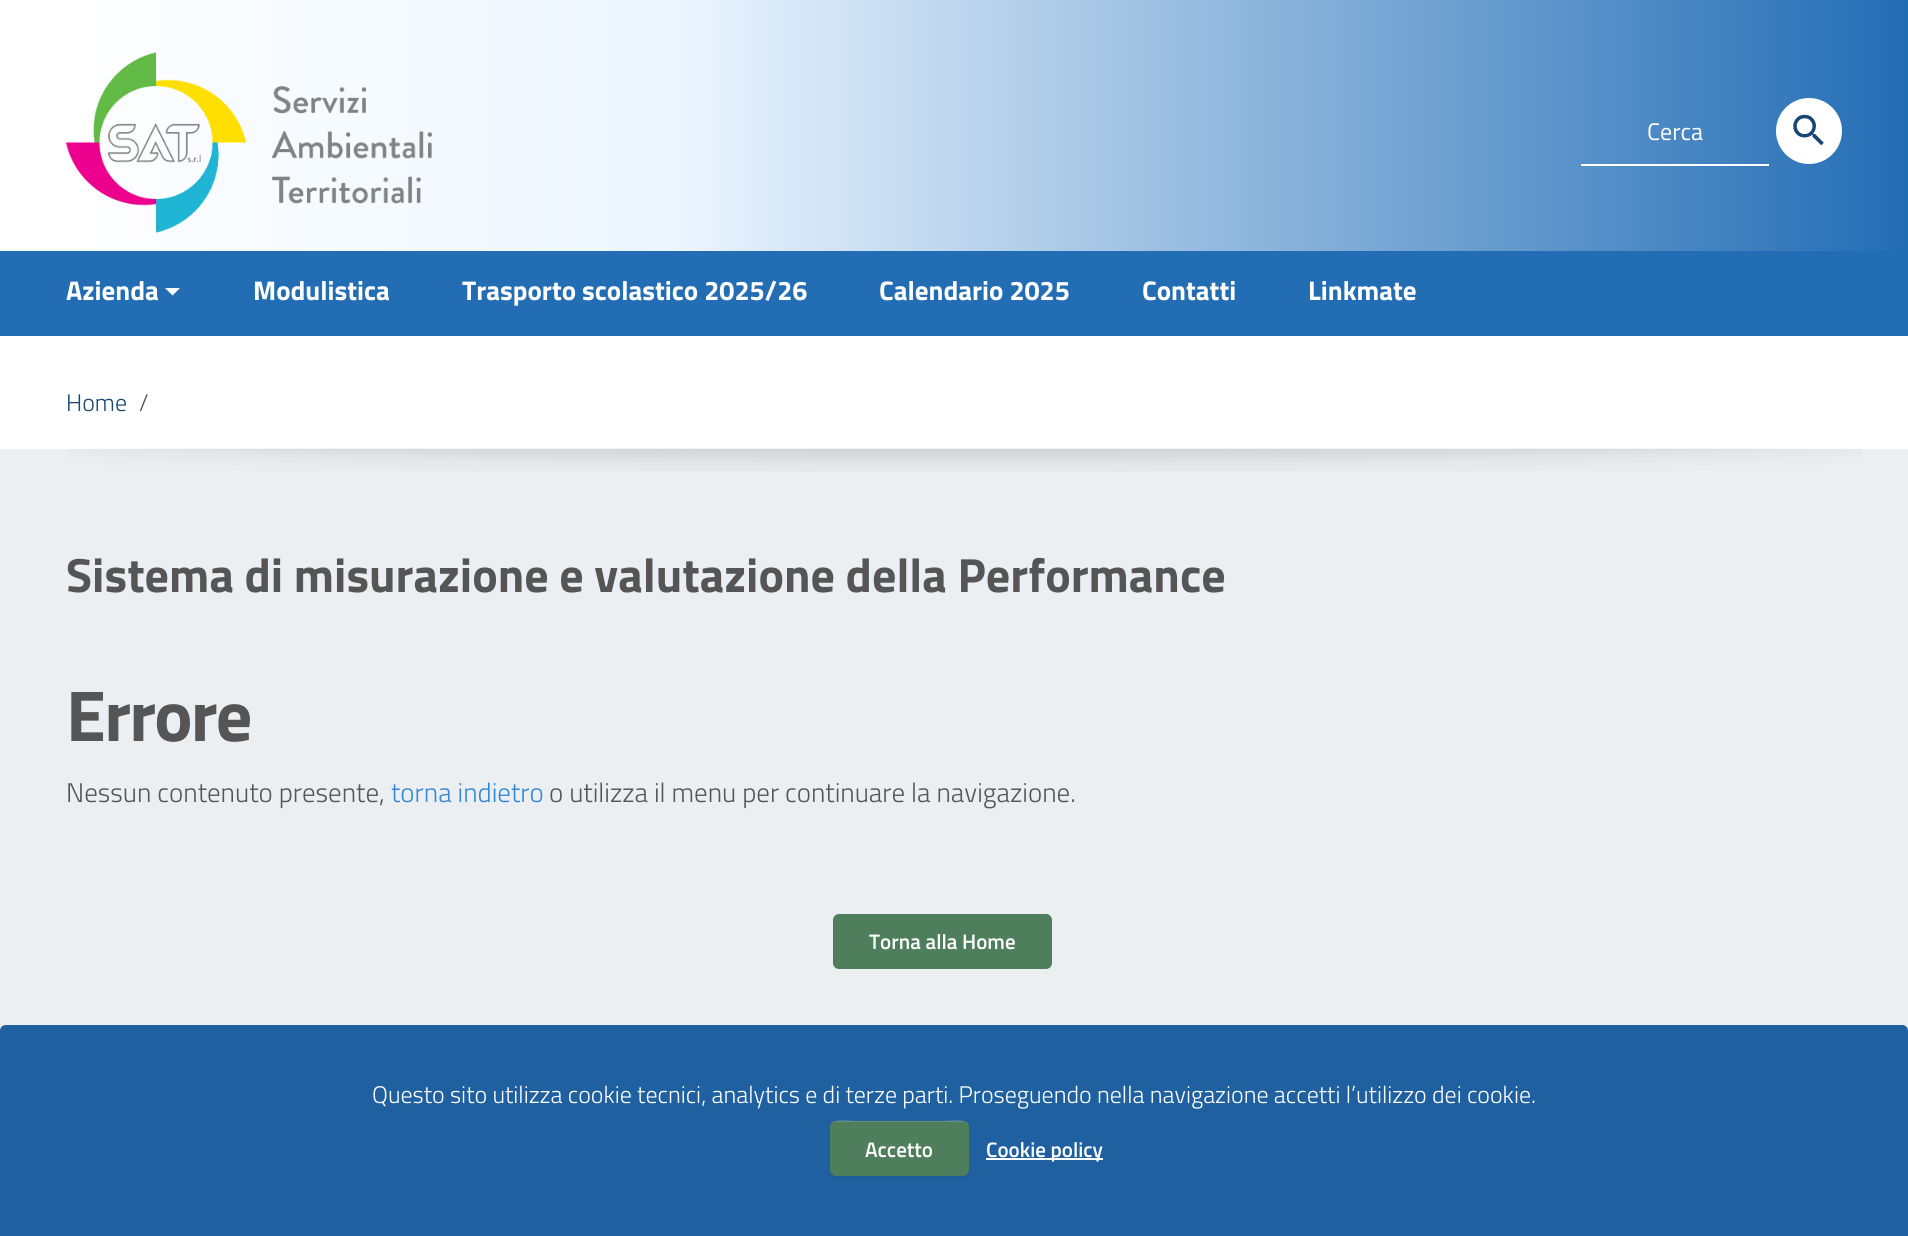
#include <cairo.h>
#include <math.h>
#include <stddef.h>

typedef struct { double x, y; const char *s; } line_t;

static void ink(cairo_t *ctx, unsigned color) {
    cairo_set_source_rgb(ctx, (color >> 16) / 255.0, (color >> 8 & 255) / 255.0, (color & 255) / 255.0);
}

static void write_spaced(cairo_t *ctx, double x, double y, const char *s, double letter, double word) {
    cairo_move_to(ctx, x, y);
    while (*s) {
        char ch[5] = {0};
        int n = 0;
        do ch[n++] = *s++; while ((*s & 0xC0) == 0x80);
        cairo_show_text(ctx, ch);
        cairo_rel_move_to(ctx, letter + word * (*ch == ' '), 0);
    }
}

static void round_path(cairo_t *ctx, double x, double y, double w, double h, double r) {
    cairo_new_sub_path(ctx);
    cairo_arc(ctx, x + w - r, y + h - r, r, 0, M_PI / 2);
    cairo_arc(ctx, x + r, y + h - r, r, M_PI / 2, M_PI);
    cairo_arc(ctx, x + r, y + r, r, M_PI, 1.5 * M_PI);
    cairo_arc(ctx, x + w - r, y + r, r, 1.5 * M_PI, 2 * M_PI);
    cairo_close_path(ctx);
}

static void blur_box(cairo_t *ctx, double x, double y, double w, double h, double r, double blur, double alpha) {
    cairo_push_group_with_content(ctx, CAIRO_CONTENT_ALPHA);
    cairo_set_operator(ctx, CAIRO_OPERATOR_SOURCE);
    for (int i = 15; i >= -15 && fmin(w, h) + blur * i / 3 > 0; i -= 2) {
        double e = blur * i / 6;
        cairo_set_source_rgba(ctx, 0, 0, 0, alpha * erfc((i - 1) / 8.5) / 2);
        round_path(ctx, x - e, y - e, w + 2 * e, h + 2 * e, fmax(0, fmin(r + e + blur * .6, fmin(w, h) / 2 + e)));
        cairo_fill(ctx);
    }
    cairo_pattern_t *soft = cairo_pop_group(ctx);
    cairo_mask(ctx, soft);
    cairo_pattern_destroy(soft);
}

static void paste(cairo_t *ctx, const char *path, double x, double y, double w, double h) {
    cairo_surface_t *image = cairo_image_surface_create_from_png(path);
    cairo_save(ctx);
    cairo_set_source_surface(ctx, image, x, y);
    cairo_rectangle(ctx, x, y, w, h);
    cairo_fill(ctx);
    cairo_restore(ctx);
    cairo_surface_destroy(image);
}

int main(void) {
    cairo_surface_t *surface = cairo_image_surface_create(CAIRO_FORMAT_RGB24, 1908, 1236);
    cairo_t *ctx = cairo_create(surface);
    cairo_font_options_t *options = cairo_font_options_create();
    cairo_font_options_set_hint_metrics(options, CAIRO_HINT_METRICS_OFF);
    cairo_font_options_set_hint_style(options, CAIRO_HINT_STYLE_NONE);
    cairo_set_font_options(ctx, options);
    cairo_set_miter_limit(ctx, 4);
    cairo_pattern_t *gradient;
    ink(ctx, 0xFFFFFF);
    cairo_paint(ctx);
    gradient = cairo_pattern_create_linear(0, 168, 1908, 168);
    cairo_pattern_add_color_stop_rgba(gradient, 0, 1, 1, 1, 1);
    cairo_pattern_add_color_stop_rgba(gradient, 0.35, 0.929, 0.965, 1, 1);
    cairo_pattern_add_color_stop_rgba(gradient, 1, 0.137, 0.427, 0.71, 1);
    cairo_set_source(ctx, gradient);
    cairo_pattern_destroy(gradient);
    cairo_rectangle(ctx, 93, 30, 1815, 221);
    cairo_fill(ctx);
    gradient = cairo_pattern_create_linear(0, 15, 1908, 15);
    cairo_pattern_add_color_stop_rgba(gradient, 0, 1, 1, 1, 1);
    cairo_pattern_add_color_stop_rgba(gradient, 0.35, 0.929, 0.965, 1, 1);
    cairo_pattern_add_color_stop_rgba(gradient, 1, 0.137, 0.427, 0.71, 1);
    cairo_set_source(ctx, gradient);
    cairo_pattern_destroy(gradient);
    cairo_rectangle(ctx, 93, 0, 1815, 30);
    cairo_fill(ctx);
    paste(ctx, "media/1.png", 66, 52, 366, 181);
    ink(ctx, 0xFFFFFF);
    cairo_rectangle(ctx, 1581, 164, 188, 2);
    cairo_fill(ctx);
    cairo_select_font_face(ctx, "Titillium Web", CAIRO_FONT_SLANT_NORMAL, CAIRO_FONT_WEIGHT_NORMAL);
    cairo_set_font_size(ctx, 24);
    cairo_move_to(ctx, 1647, 140);
    cairo_show_text(ctx, "Cerca");
    cairo_new_path(ctx);
    cairo_arc(ctx, 1809, 131, 33, 0, 2 * M_PI);
    cairo_fill(ctx);
    paste(ctx, "media/2.png", 1793, 114, 31, 32);
    ink(ctx, 0x236DB5);
    cairo_rectangle(ctx, 0, 251, 1908, 85);
    cairo_fill(ctx);
    cairo_select_font_face(ctx, "Titillium Web", CAIRO_FONT_SLANT_NORMAL, CAIRO_FONT_WEIGHT_BOLD);
    cairo_set_font_size(ctx, 27);
    ink(ctx, 0xFFFFFF);
    cairo_move_to(ctx, 66, 300);
    cairo_show_text(ctx, "Azienda");
    cairo_new_path(ctx);
    cairo_move_to(ctx, 165, 288);
    cairo_line_to(ctx, 180, 288);
    cairo_line_to(ctx, 172.5, 295.5);
    cairo_close_path(ctx);
    cairo_fill(ctx);
    {
        static const line_t items[] = {
            {253, 300, "Modulistica"},
            {462, 300, "Trasporto scolastico 2025/26"},
            {879, 300, "Calendario 2025"},
            {1142, 300, "Contatti"},
            {1308, 300, "Linkmate"},
        };
        for (size_t i = 0; i < sizeof items / sizeof *items; i++) {
            cairo_move_to(ctx, items[i].x, items[i].y);
            cairo_show_text(ctx, items[i].s);
        }
    }
    cairo_select_font_face(ctx, "Titillium Web Light", CAIRO_FONT_SLANT_NORMAL, CAIRO_FONT_WEIGHT_NORMAL);
    cairo_set_font_size(ctx, 24);
    ink(ctx, 0x164775);
    cairo_move_to(ctx, 66, 411);
    cairo_show_text(ctx, "Home");
    ink(ctx, 0x555555);
    cairo_move_to(ctx, 139, 411);
    cairo_show_text(ctx, "/");
    ink(ctx, 0xECEFF1);
    cairo_rectangle(ctx, 0, 449, 1908, 582);
    cairo_fill(ctx);
    paste(ctx, "media/3.png", 69, 448, 1793, 24);
    cairo_select_font_face(ctx, "Titillium Web", CAIRO_FONT_SLANT_NORMAL, CAIRO_FONT_WEIGHT_BOLD);
    cairo_set_font_size(ctx, 48);
    ink(ctx, 0x555555);
    cairo_move_to(ctx, 66, 592);
    cairo_show_text(ctx, "Sistema di misurazione e valutazione della Performance");
    cairo_set_font_size(ctx, 72);
    write_spaced(ctx, 66, 741, "Errore", -1.75, 0);
    cairo_select_font_face(ctx, "Titillium Web Light", CAIRO_FONT_SLANT_NORMAL, CAIRO_FONT_WEIGHT_NORMAL);
    cairo_set_font_size(ctx, 27);
    cairo_move_to(ctx, 66, 802);
    cairo_show_text(ctx, "Nessun contenuto presente,");
    ink(ctx, 0x3387D8);
    cairo_move_to(ctx, 391, 802);
    cairo_show_text(ctx, "torna indietro");
    ink(ctx, 0x555555);
    cairo_move_to(ctx, 549, 802);
    cairo_show_text(ctx, "o utilizza il menu per continuare la navigazione.");
    ink(ctx, 0x4E7E5B);
    round_path(ctx, 833, 914, 219, 55, 6);
    cairo_fill(ctx);
    cairo_select_font_face(ctx, "Titillium Web SemiBold", CAIRO_FONT_SLANT_NORMAL, CAIRO_FONT_WEIGHT_NORMAL);
    cairo_set_font_size(ctx, 21);
    ink(ctx, 0xFFFFFF);
    cairo_move_to(ctx, 869, 949);
    cairo_show_text(ctx, "Torna alla Home");
    ink(ctx, 0x1F60A0);
    cairo_new_path(ctx);
    cairo_move_to(ctx, 6, 1025);
    cairo_line_to(ctx, 1902, 1025);
    cairo_curve_to(ctx, 1905.5, 1025, 1908, 1027.5, 1908, 1031);
    cairo_line_to(ctx, 1908, 1236);
    cairo_line_to(ctx, 0, 1236);
    cairo_line_to(ctx, 0, 1031);
    cairo_curve_to(ctx, 0, 1027.5, 2.5, 1025, 6, 1025);
    cairo_close_path(ctx);
    cairo_fill(ctx);
    cairo_select_font_face(ctx, "Titillium Web Light", CAIRO_FONT_SLANT_NORMAL, CAIRO_FONT_WEIGHT_NORMAL);
    cairo_set_font_size(ctx, 24);
    ink(ctx, 0xFFFFFF);
    cairo_move_to(ctx, 372, 1103);
    cairo_show_text(ctx, "Questo sito utilizza cookie tecnici, analytics e di terze parti. Proseguendo nella navigazione accetti l’utilizzo dei cookie.");
    ink(ctx, 0x000000);
    blur_box(ctx, 830, 1122, 139, 56, 6, 1, 0.07);
    ink(ctx, 0x4E7E5B);
    round_path(ctx, 830, 1121, 139, 55, 6);
    cairo_fill(ctx);
    cairo_set_source_rgba(ctx, 1, 1, 1, 0.15);
    cairo_new_path(ctx);
    cairo_move_to(ctx, 836, 1122);
    cairo_line_to(ctx, 963, 1122);
    cairo_curve_to(ctx, 966, 1122, 969, 1125, 969, 1128);
    cairo_curve_to(ctx, 969, 1116, 947, 1121, 942, 1121);
    cairo_line_to(ctx, 857, 1121);
    cairo_curve_to(ctx, 852, 1121, 830, 1116, 830, 1128);
    cairo_curve_to(ctx, 830, 1125, 832, 1122, 836, 1122);
    cairo_close_path(ctx);
    cairo_fill(ctx);
    cairo_select_font_face(ctx, "Titillium Web SemiBold", CAIRO_FONT_SLANT_NORMAL, CAIRO_FONT_WEIGHT_NORMAL);
    cairo_set_font_size(ctx, 21);
    ink(ctx, 0xFFFFFF);
    cairo_move_to(ctx, 865, 1157);
    cairo_show_text(ctx, "Accetto");
    cairo_rectangle(ctx, 986, 1158, 117, 2);
    cairo_fill(ctx);
    cairo_move_to(ctx, 986, 1157);
    cairo_show_text(ctx, "Cookie policy");
    cairo_surface_write_to_png(surface, "image.png");
    cairo_font_options_destroy(options);
    cairo_destroy(ctx);
    cairo_surface_destroy(surface);
    return 0;
}
